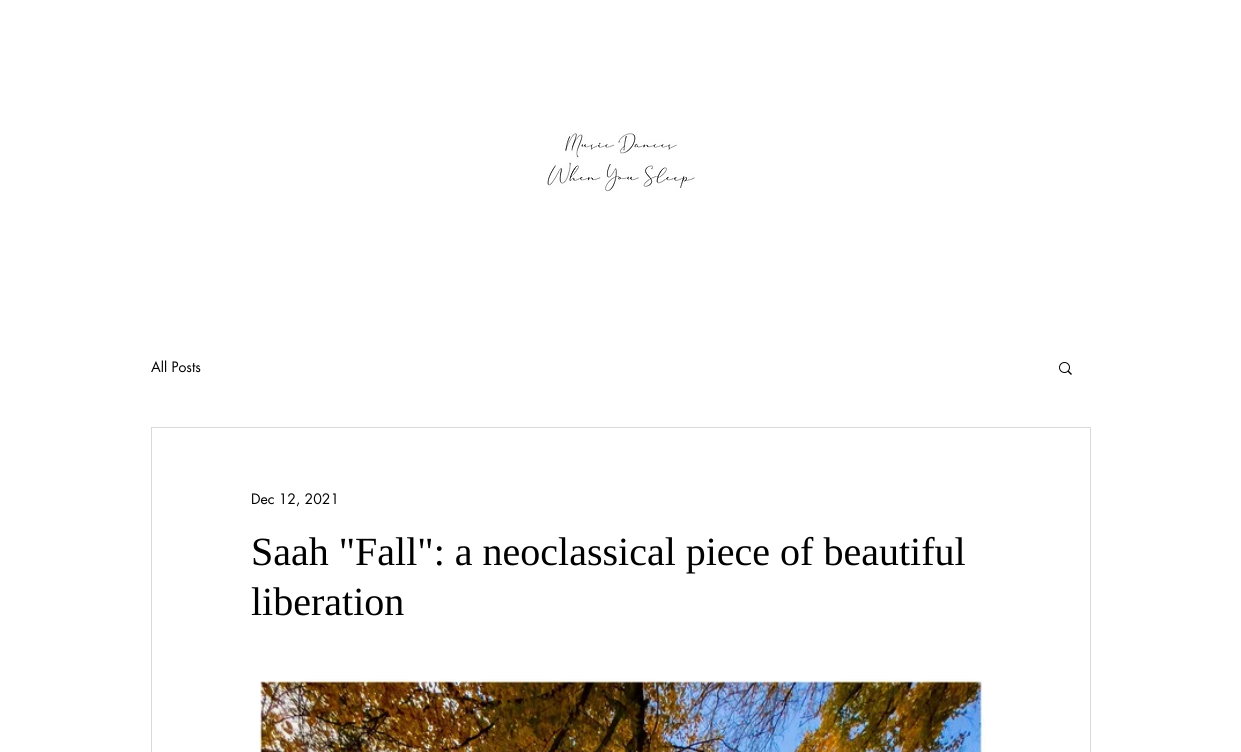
#include <cairo.h>
#include <math.h>
#include <stddef.h>


static void ink(cairo_t *ctx, unsigned color) {
    cairo_set_source_rgb(ctx, (color >> 16) / 255.0, (color >> 8 & 255) / 255.0, (color & 255) / 255.0);
}

static void paste(cairo_t *ctx, const char *path, double x, double y, double w, double h) {
    cairo_surface_t *image = cairo_image_surface_create_from_png(path);
    cairo_save(ctx);
    cairo_set_source_surface(ctx, image, x, y);
    cairo_rectangle(ctx, x, y, w, h);
    cairo_fill(ctx);
    cairo_restore(ctx);
    cairo_surface_destroy(image);
}

int main(void) {
    cairo_surface_t *surface = cairo_image_surface_create(CAIRO_FORMAT_RGB24, 1241, 752);
    cairo_t *ctx = cairo_create(surface);
    cairo_font_options_t *options = cairo_font_options_create();
    cairo_font_options_set_hint_metrics(options, CAIRO_HINT_METRICS_OFF);
    cairo_font_options_set_hint_style(options, CAIRO_HINT_STYLE_NONE);
    cairo_set_font_options(ctx, options);
    cairo_set_miter_limit(ctx, 4);
    ink(ctx, 0xFFFFFF);
    cairo_paint(ctx);
    paste(ctx, "media/1.png", 547, 133, 148, 59);
    cairo_select_font_face(ctx, "futura", CAIRO_FONT_SLANT_NORMAL, CAIRO_FONT_WEIGHT_NORMAL);
    cairo_set_font_size(ctx, 14);
    ink(ctx, 0x000000);
    cairo_move_to(ctx, 151, 372);
    cairo_show_text(ctx, "All Posts");
    paste(ctx, "media/2.png", 1059, 362, 13, 13);
    cairo_rectangle(ctx, 151.5, 427.5, 939, 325);
    ink(ctx, 0xD9D9D9);
    cairo_set_line_width(ctx, 1);
    cairo_stroke(ctx);
    ink(ctx, 0x000000);
    cairo_move_to(ctx, 251, 504);
    cairo_show_text(ctx, "Dec 12, 2021");
    cairo_select_font_face(ctx, "Liberation Serif", CAIRO_FONT_SLANT_NORMAL, CAIRO_FONT_WEIGHT_NORMAL);
    cairo_set_font_size(ctx, 40);
    cairo_move_to(ctx, 251, 565);
    cairo_show_text(ctx, "Saah \"Fall\": a neoclassical piece of beautiful");
    cairo_move_to(ctx, 251, 615);
    cairo_show_text(ctx, "liberation");
    paste(ctx, "media/3.png", 259, 679, 726, 73);
    cairo_surface_write_to_png(surface, "image.png");
    cairo_font_options_destroy(options);
    cairo_destroy(ctx);
    cairo_surface_destroy(surface);
    return 0;
}
